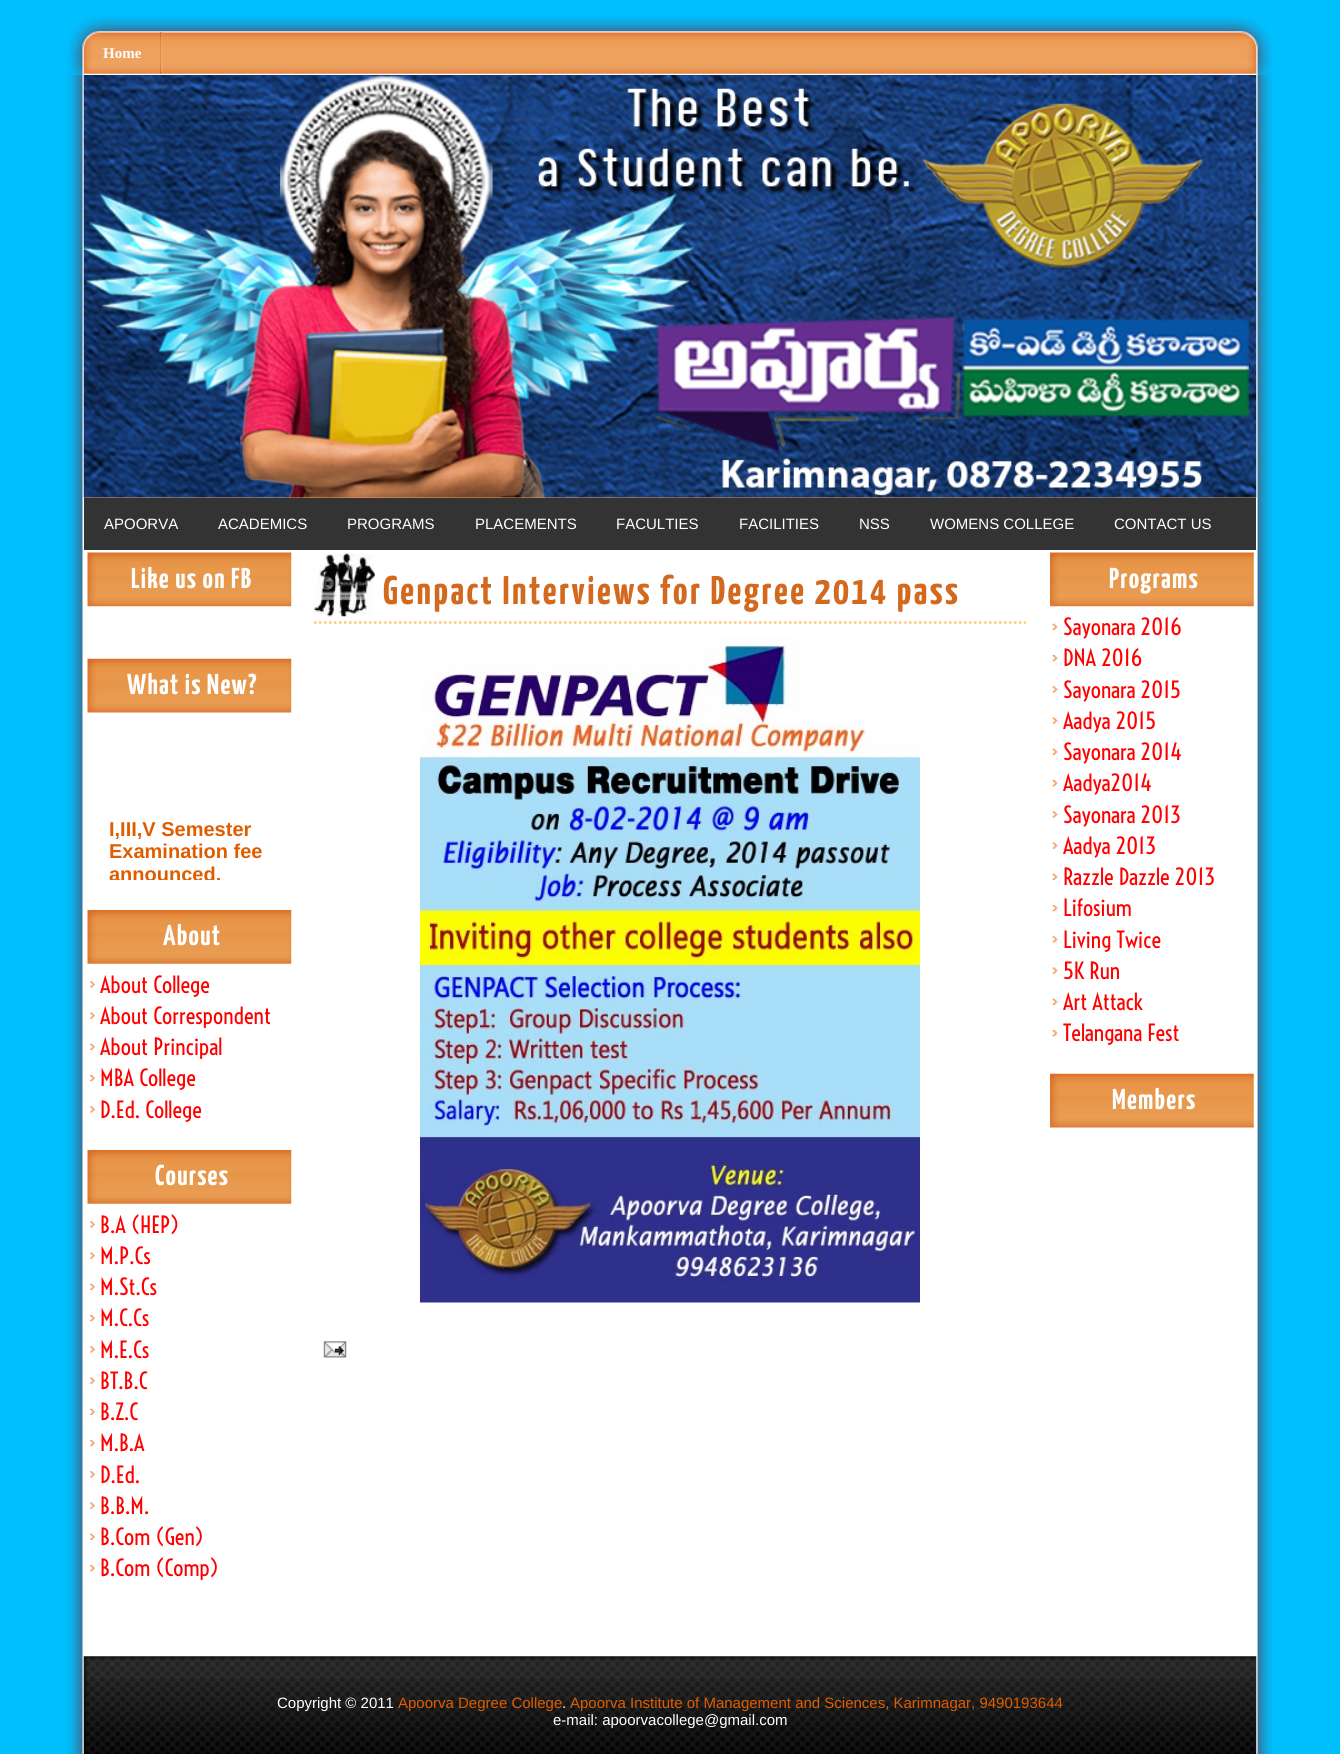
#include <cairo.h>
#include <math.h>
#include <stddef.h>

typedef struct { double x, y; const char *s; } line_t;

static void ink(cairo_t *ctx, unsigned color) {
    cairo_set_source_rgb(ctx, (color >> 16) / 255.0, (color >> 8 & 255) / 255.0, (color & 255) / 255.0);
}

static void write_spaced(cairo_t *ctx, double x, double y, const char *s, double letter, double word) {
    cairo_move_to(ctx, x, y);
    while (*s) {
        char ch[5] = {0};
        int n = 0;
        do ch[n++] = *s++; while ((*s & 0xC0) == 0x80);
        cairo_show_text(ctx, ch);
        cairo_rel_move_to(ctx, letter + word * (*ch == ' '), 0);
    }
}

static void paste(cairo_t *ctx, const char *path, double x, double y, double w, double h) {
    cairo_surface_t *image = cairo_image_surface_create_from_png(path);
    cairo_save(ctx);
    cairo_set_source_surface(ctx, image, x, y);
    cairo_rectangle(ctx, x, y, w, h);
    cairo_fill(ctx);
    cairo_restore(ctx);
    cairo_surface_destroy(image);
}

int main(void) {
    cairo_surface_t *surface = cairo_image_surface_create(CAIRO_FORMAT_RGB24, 1340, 1754);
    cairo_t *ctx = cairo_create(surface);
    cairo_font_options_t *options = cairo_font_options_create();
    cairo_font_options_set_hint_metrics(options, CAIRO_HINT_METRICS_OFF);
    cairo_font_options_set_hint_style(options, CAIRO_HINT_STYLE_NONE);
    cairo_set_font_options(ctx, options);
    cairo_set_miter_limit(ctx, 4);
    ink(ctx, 0x00BFFF);
    cairo_paint(ctx);
    paste(ctx, "media/1.png", 67, 16, 1206, 59);
    paste(ctx, "media/2.png", 160, 32, 3, 42);
    cairo_select_font_face(ctx, "Liberation Serif", CAIRO_FONT_SLANT_NORMAL, CAIRO_FONT_WEIGHT_BOLD);
    cairo_set_font_size(ctx, 15);
    ink(ctx, 0xFFFFFF);
    cairo_move_to(ctx, 103, 58);
    cairo_show_text(ctx, "Home");
    paste(ctx, "media/3.png", 67, 75, 1206, 1679);
    ink(ctx, 0xECA05B);
    cairo_rectangle(ctx, 84, 497, 1172, 1);
    cairo_fill(ctx);
    paste(ctx, "media/4.png", 83, 75, 1174, 423);
    ink(ctx, 0x333333);
    cairo_rectangle(ctx, 84, 498, 1172, 52);
    cairo_fill(ctx);
    cairo_select_font_face(ctx, "Liberation Sans", CAIRO_FONT_SLANT_NORMAL, CAIRO_FONT_WEIGHT_NORMAL);
    ink(ctx, 0xFFFFFF);
    {
        static const line_t items[] = {
            {104, 529, "APOORVA"},
            {218, 529, "ACADEMICS"},
            {347, 529, "PROGRAMS"},
            {475, 529, "PLACEMENTS"},
            {616, 529, "FACULTIES"},
            {739, 529, "FACILITIES"},
            {859, 529, "NSS"},
            {930, 529, "WOMENS COLLEGE"},
            {1114, 529, "CONTACT US"},
        };
        for (size_t i = 0; i < sizeof items / sizeof *items; i++) {
            cairo_move_to(ctx, items[i].x, items[i].y);
            cairo_show_text(ctx, items[i].s);
        }
    }
    paste(ctx, "media/5.png", 87, 552, 205, 55);
    cairo_select_font_face(ctx, "Yanone Kaffeesatz ExtraLight", CAIRO_FONT_SLANT_NORMAL, CAIRO_FONT_WEIGHT_NORMAL);
    cairo_set_font_size(ctx, 28.75);
    write_spaced(ctx, 131, 588, "Like us on FB", 1.25, 0);
    paste(ctx, "media/6.png", 87, 658, 205, 55);
    write_spaced(ctx, 127, 694, "What is New?", 1.25, 0);
    cairo_select_font_face(ctx, "Liberation Sans", CAIRO_FONT_SLANT_NORMAL, CAIRO_FONT_WEIGHT_BOLD);
    cairo_set_font_size(ctx, 20);
    ink(ctx, 0xDF5D00);
    cairo_move_to(ctx, 109, 836);
    cairo_show_text(ctx, "I,III,V Semester");
    cairo_move_to(ctx, 109, 858);
    cairo_show_text(ctx, "Examination fee");
    cairo_save(ctx);
    cairo_rectangle(ctx, 109, 718, 185, 162);
    cairo_clip(ctx);
    cairo_move_to(ctx, 109, 881);
    cairo_show_text(ctx, "announced.");
    cairo_restore(ctx);
    paste(ctx, "media/7.png", 87, 910, 205, 54);
    cairo_select_font_face(ctx, "Yanone Kaffeesatz ExtraLight", CAIRO_FONT_SLANT_NORMAL, CAIRO_FONT_WEIGHT_NORMAL);
    cairo_set_font_size(ctx, 28.75);
    ink(ctx, 0xFFFFFF);
    write_spaced(ctx, 163, 945, "About", 1.25, 0);
    paste(ctx, "media/8.png", 90, 981, 5, 7);
    cairo_select_font_face(ctx, "Voltaire", CAIRO_FONT_SLANT_NORMAL, CAIRO_FONT_WEIGHT_NORMAL);
    cairo_set_font_size(ctx, 22.5);
    ink(ctx, 0xFF0000);
    cairo_move_to(ctx, 100, 993);
    cairo_show_text(ctx, "About College");
    paste(ctx, "media/9.png", 90, 1012, 5, 7);
    cairo_move_to(ctx, 100, 1024);
    cairo_show_text(ctx, "About Correspondent");
    paste(ctx, "media/10.png", 90, 1043, 5, 7);
    cairo_move_to(ctx, 100, 1055);
    cairo_show_text(ctx, "About Principal");
    paste(ctx, "media/11.png", 90, 1075, 5, 7);
    cairo_move_to(ctx, 100, 1086);
    cairo_show_text(ctx, "MBA College");
    paste(ctx, "media/8.png", 90, 1106, 5, 7);
    cairo_move_to(ctx, 100, 1118);
    cairo_show_text(ctx, "D.Ed. College");
    paste(ctx, "media/12.png", 87, 1150, 205, 54);
    cairo_select_font_face(ctx, "Yanone Kaffeesatz ExtraLight", CAIRO_FONT_SLANT_NORMAL, CAIRO_FONT_WEIGHT_NORMAL);
    cairo_set_font_size(ctx, 28.75);
    ink(ctx, 0xFFFFFF);
    write_spaced(ctx, 155, 1185, "Courses", 1.25, 0);
    paste(ctx, "media/8.png", 90, 1221, 5, 7);
    cairo_select_font_face(ctx, "Voltaire", CAIRO_FONT_SLANT_NORMAL, CAIRO_FONT_WEIGHT_NORMAL);
    cairo_set_font_size(ctx, 22.5);
    ink(ctx, 0xFF0000);
    cairo_move_to(ctx, 100, 1233);
    cairo_show_text(ctx, "B.A (HEP)");
    paste(ctx, "media/9.png", 90, 1252, 5, 7);
    cairo_move_to(ctx, 100, 1264);
    cairo_show_text(ctx, "M.P.Cs");
    paste(ctx, "media/10.png", 90, 1283, 5, 7);
    cairo_move_to(ctx, 100, 1295);
    cairo_show_text(ctx, "M.St.Cs");
    paste(ctx, "media/11.png", 90, 1315, 5, 7);
    cairo_move_to(ctx, 100, 1326);
    cairo_show_text(ctx, "M.C.Cs");
    paste(ctx, "media/8.png", 90, 1346, 5, 7);
    cairo_move_to(ctx, 100, 1358);
    cairo_show_text(ctx, "M.E.Cs");
    paste(ctx, "media/9.png", 90, 1377, 5, 7);
    cairo_move_to(ctx, 100, 1389);
    cairo_show_text(ctx, "BT.B.C");
    paste(ctx, "media/10.png", 90, 1408, 5, 7);
    cairo_move_to(ctx, 100, 1420);
    cairo_show_text(ctx, "B.Z.C");
    paste(ctx, "media/11.png", 90, 1440, 5, 7);
    cairo_move_to(ctx, 100, 1451);
    cairo_show_text(ctx, "M.B.A");
    paste(ctx, "media/8.png", 90, 1471, 5, 7);
    cairo_move_to(ctx, 100, 1483);
    cairo_show_text(ctx, "D.Ed.");
    paste(ctx, "media/9.png", 90, 1502, 5, 7);
    cairo_move_to(ctx, 100, 1514);
    cairo_show_text(ctx, "B.B.M.");
    paste(ctx, "media/10.png", 90, 1533, 5, 7);
    cairo_move_to(ctx, 100, 1545);
    cairo_show_text(ctx, "B.Com (Gen)");
    paste(ctx, "media/11.png", 90, 1565, 5, 7);
    cairo_move_to(ctx, 100, 1576);
    cairo_show_text(ctx, "B.Com (Comp)");
    paste(ctx, "media/13.png", 1050, 552, 204, 55);
    cairo_select_font_face(ctx, "Yanone Kaffeesatz ExtraLight", CAIRO_FONT_SLANT_NORMAL, CAIRO_FONT_WEIGHT_NORMAL);
    cairo_set_font_size(ctx, 28.75);
    ink(ctx, 0xFFFFFF);
    write_spaced(ctx, 1109, 588, "Programs", 1.25, 0);
    paste(ctx, "media/14.png", 1052, 623, 6, 7);
    cairo_select_font_face(ctx, "Voltaire", CAIRO_FONT_SLANT_NORMAL, CAIRO_FONT_WEIGHT_NORMAL);
    cairo_set_font_size(ctx, 22.5);
    ink(ctx, 0xFF0000);
    cairo_move_to(ctx, 1063, 635);
    cairo_show_text(ctx, "Sayonara 2016");
    paste(ctx, "media/15.png", 1052, 655, 6, 7);
    cairo_move_to(ctx, 1063, 666);
    cairo_show_text(ctx, "DNA 2016");
    paste(ctx, "media/16.png", 1052, 686, 6, 7);
    cairo_move_to(ctx, 1063, 698);
    cairo_show_text(ctx, "Sayonara 2015");
    paste(ctx, "media/17.png", 1052, 717, 6, 7);
    cairo_move_to(ctx, 1063, 729);
    cairo_show_text(ctx, "Aadya 2015");
    paste(ctx, "media/14.png", 1052, 748, 6, 7);
    cairo_move_to(ctx, 1063, 760);
    cairo_show_text(ctx, "Sayonara 2014");
    paste(ctx, "media/18.png", 1052, 780, 6, 7);
    cairo_move_to(ctx, 1063, 791);
    cairo_show_text(ctx, "Aadya2014");
    paste(ctx, "media/16.png", 1052, 811, 6, 7);
    cairo_move_to(ctx, 1063, 823);
    cairo_show_text(ctx, "Sayonara 2013");
    paste(ctx, "media/17.png", 1052, 842, 6, 7);
    cairo_move_to(ctx, 1063, 854);
    cairo_show_text(ctx, "Aadya 2013");
    paste(ctx, "media/14.png", 1052, 873, 6, 7);
    cairo_move_to(ctx, 1063, 885);
    cairo_show_text(ctx, "Razzle Dazzle 2013");
    paste(ctx, "media/15.png", 1052, 905, 6, 7);
    cairo_move_to(ctx, 1063, 916);
    cairo_show_text(ctx, "Lifosium");
    paste(ctx, "media/16.png", 1052, 936, 6, 7);
    cairo_move_to(ctx, 1063, 948);
    cairo_show_text(ctx, "Living Twice");
    paste(ctx, "media/17.png", 1052, 967, 6, 7);
    cairo_move_to(ctx, 1063, 979);
    cairo_show_text(ctx, "5K Run");
    paste(ctx, "media/14.png", 1052, 998, 6, 7);
    cairo_move_to(ctx, 1063, 1010);
    cairo_show_text(ctx, "Art Attack");
    paste(ctx, "media/15.png", 1052, 1030, 6, 7);
    cairo_move_to(ctx, 1063, 1041);
    cairo_show_text(ctx, "Telangana Fest");
    paste(ctx, "media/19.png", 1050, 1073, 204, 55);
    cairo_select_font_face(ctx, "Yanone Kaffeesatz ExtraLight", CAIRO_FONT_SLANT_NORMAL, CAIRO_FONT_WEIGHT_NORMAL);
    cairo_set_font_size(ctx, 28.75);
    ink(ctx, 0xFFFFFF);
    write_spaced(ctx, 1112, 1109, "Members", 1.25, 0);
    paste(ctx, "media/20.png", 313, 553, 62, 64);
    cairo_new_path(ctx);
    cairo_move_to(ctx, 314, 622.5);
    cairo_line_to(ctx, 1026, 622.5);
    ink(ctx, 0xFDCA80);
    cairo_set_line_width(ctx, 2.5);
    cairo_set_dash(ctx, (double[]){2.5, 2.5}, 2, 0);
    cairo_stroke(ctx);
    cairo_set_font_size(ctx, 40);
    ink(ctx, 0xD2691E);
    write_spaced(ctx, 383, 604, "Genpact Interviews for Degree 2014 pass", 2.5, 0);
    paste(ctx, "media/21.png", 420, 636, 500, 667);
    paste(ctx, "media/22.png", 323, 1341, 24, 17);
    paste(ctx, "media/23.png", 83, 1656, 1174, 98);
    cairo_select_font_face(ctx, "Liberation Sans", CAIRO_FONT_SLANT_NORMAL, CAIRO_FONT_WEIGHT_NORMAL);
    cairo_set_font_size(ctx, 15);
    ink(ctx, 0xFFFFFF);
    cairo_move_to(ctx, 277, 1708);
    cairo_show_text(ctx, "Copyright © 2011");
    ink(ctx, 0xDF5D00);
    cairo_move_to(ctx, 398, 1708);
    cairo_show_text(ctx, "Apoorva Degree College");
    ink(ctx, 0xFFFFFF);
    cairo_move_to(ctx, 562, 1708);
    cairo_show_text(ctx, ".");
    ink(ctx, 0xDF5D00);
    cairo_move_to(ctx, 570, 1708);
    cairo_show_text(ctx, "Apoorva Institute of Management and Sciences, Karimnagar, 9490193644");
    ink(ctx, 0xFFFFFF);
    cairo_move_to(ctx, 553, 1725);
    cairo_show_text(ctx, "e-mail: apoorvacollege@gmail.com");
    cairo_surface_write_to_png(surface, "image.png");
    cairo_font_options_destroy(options);
    cairo_destroy(ctx);
    cairo_surface_destroy(surface);
    return 0;
}
